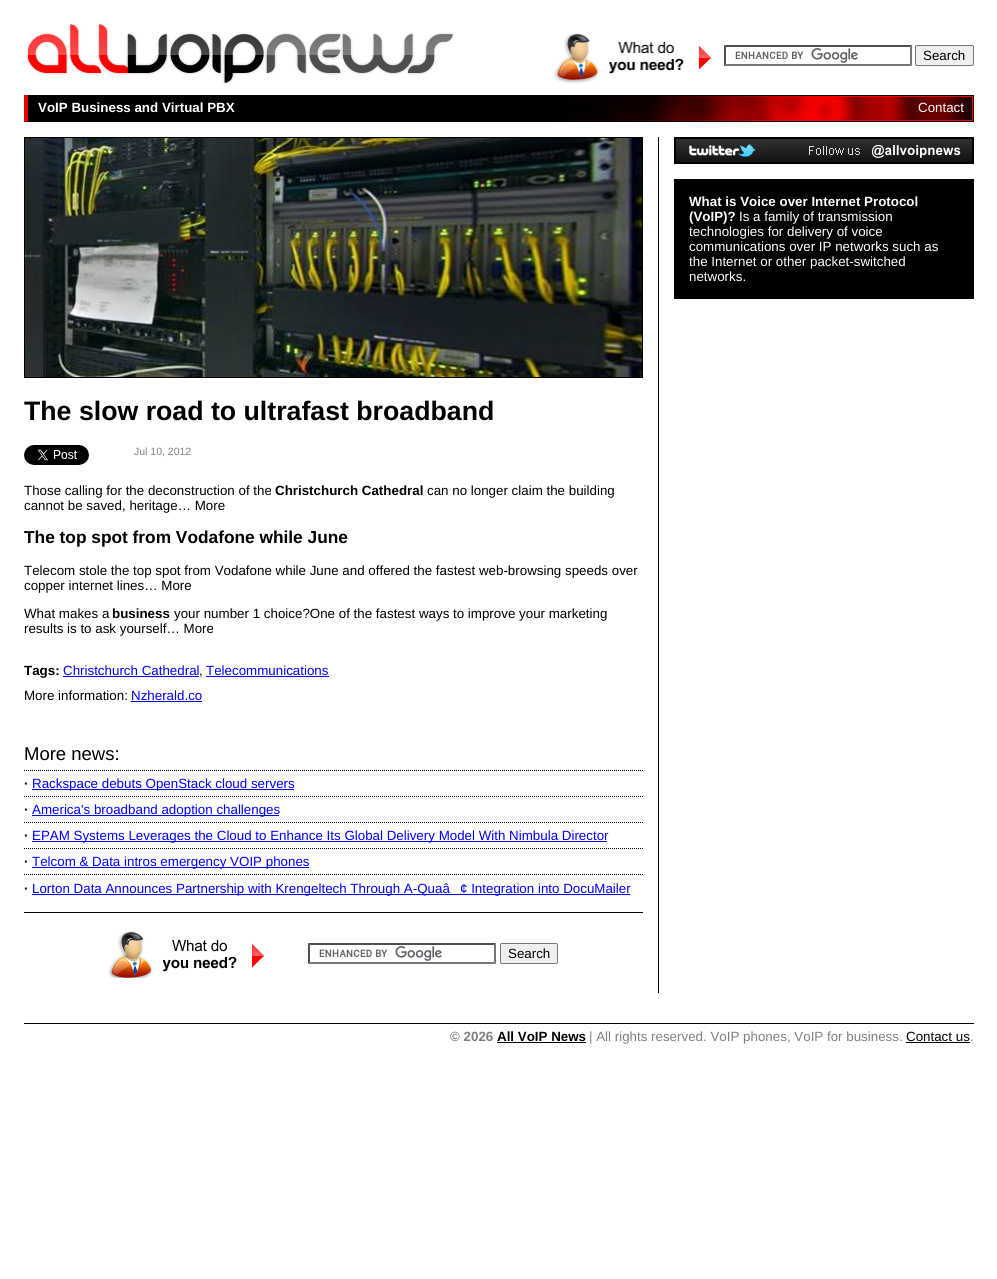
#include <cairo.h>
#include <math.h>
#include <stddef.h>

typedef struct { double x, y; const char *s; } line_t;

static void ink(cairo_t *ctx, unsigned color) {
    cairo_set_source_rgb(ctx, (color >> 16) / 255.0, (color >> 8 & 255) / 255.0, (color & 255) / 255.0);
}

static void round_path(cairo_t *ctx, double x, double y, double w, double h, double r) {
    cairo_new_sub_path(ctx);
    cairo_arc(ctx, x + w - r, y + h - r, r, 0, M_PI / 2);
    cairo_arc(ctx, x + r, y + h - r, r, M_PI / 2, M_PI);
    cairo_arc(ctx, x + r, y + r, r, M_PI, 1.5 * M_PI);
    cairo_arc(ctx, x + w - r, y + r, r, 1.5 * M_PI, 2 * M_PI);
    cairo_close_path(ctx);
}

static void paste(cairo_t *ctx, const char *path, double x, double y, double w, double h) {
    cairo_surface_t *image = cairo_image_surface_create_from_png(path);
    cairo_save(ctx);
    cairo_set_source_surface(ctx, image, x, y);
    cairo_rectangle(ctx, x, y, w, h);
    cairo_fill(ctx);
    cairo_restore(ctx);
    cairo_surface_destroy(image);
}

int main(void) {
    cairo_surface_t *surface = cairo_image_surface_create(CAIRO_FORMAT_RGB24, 997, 1279);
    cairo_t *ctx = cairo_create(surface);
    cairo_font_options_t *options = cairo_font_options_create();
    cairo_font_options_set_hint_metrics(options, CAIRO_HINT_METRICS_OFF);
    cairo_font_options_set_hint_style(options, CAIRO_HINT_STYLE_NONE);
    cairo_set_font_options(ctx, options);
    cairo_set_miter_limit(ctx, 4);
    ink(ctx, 0xFFFFFF);
    cairo_paint(ctx);
    paste(ctx, "media/1.png", 26, 23, 428, 61);
    paste(ctx, "media/2.png", 554, 33, 157, 51);
    paste(ctx, "media/3.png", 735, 48, 123, 15);
    ink(ctx, 0x4F4F4F);
    cairo_new_path(ctx);
    cairo_move_to(ctx, 724, 45);
    cairo_line_to(ctx, 912, 45);
    cairo_line_to(ctx, 910, 47);
    cairo_line_to(ctx, 726, 47);
    cairo_close_path(ctx);
    cairo_fill(ctx);
    ink(ctx, 0x767676);
    cairo_new_path(ctx);
    cairo_move_to(ctx, 912, 45);
    cairo_line_to(ctx, 912, 66);
    cairo_line_to(ctx, 910, 64);
    cairo_line_to(ctx, 910, 47);
    cairo_close_path(ctx);
    cairo_fill(ctx);
    cairo_new_path(ctx);
    cairo_move_to(ctx, 912, 66);
    cairo_line_to(ctx, 724, 66);
    cairo_line_to(ctx, 726, 64);
    cairo_line_to(ctx, 910, 64);
    cairo_close_path(ctx);
    cairo_fill(ctx);
    ink(ctx, 0x4F4F4F);
    cairo_new_path(ctx);
    cairo_move_to(ctx, 724, 66);
    cairo_line_to(ctx, 724, 45);
    cairo_line_to(ctx, 726, 47);
    cairo_line_to(ctx, 726, 64);
    cairo_close_path(ctx);
    cairo_fill(ctx);
    ink(ctx, 0xEFEFEF);
    round_path(ctx, 915.5, 45.5, 58, 20, 1.5);
    cairo_fill_preserve(ctx);
    ink(ctx, 0x767676);
    cairo_set_line_width(ctx, 1);
    cairo_stroke(ctx);
    cairo_select_font_face(ctx, "Liberation Sans", CAIRO_FONT_SLANT_NORMAL, CAIRO_FONT_WEIGHT_NORMAL);
    cairo_set_font_size(ctx, 13.35);
    ink(ctx, 0x000000);
    cairo_move_to(ctx, 923, 60);
    cairo_show_text(ctx, "Search");
    cairo_rectangle(ctx, 28, 95, 946, 27);
    cairo_fill(ctx);
    paste(ctx, "media/4.png", 526, 96, 447, 25);
    ink(ctx, 0xE80000);
    cairo_rectangle(ctx, 24, 95, 4, 27);
    cairo_fill(ctx);
    cairo_select_font_face(ctx, "Liberation Sans", CAIRO_FONT_SLANT_NORMAL, CAIRO_FONT_WEIGHT_BOLD);
    ink(ctx, 0xFFFFFF);
    cairo_move_to(ctx, 38, 112);
    cairo_show_text(ctx, "VoIP Business and Virtual PBX");
    cairo_select_font_face(ctx, "Liberation Sans", CAIRO_FONT_SLANT_NORMAL, CAIRO_FONT_WEIGHT_NORMAL);
    cairo_move_to(ctx, 918, 112);
    cairo_show_text(ctx, "Contact");
    paste(ctx, "media/5.png", 674, 137, 300, 27);
    ink(ctx, 0x000000);
    cairo_rectangle(ctx, 674, 179, 300, 120);
    cairo_fill(ctx);
    cairo_select_font_face(ctx, "Liberation Sans", CAIRO_FONT_SLANT_NORMAL, CAIRO_FONT_WEIGHT_BOLD);
    ink(ctx, 0xFFFFFF);
    cairo_move_to(ctx, 689, 206);
    cairo_show_text(ctx, "What is Voice over Internet Protocol");
    cairo_move_to(ctx, 689, 221);
    cairo_show_text(ctx, "(VoIP)?");
    cairo_select_font_face(ctx, "Liberation Sans", CAIRO_FONT_SLANT_NORMAL, CAIRO_FONT_WEIGHT_NORMAL);
    {
        static const line_t items[] = {
            {739, 221, "Is a family of transmission"},
            {689, 236, "technologies for delivery of voice"},
            {689, 251, "communications over IP networks such as"},
            {689, 266, "the Internet or other packet-switched"},
            {689, 281, "networks."},
        };
        for (size_t i = 0; i < sizeof items / sizeof *items; i++) {
            cairo_move_to(ctx, items[i].x, items[i].y);
            cairo_show_text(ctx, items[i].s);
        }
    }
    ink(ctx, 0x000000);
    cairo_rectangle(ctx, 658, 137, 1, 856);
    cairo_fill(ctx);
    cairo_rectangle(ctx, 24.5, 137.5, 618, 240);
    cairo_stroke(ctx);
    paste(ctx, "media/6.png", 25, 138, 617, 239);
    cairo_save(ctx);
    cairo_rectangle(ctx, 24, 137, 634, 856);
    cairo_clip(ctx);
    cairo_select_font_face(ctx, "Liberation Sans", CAIRO_FONT_SLANT_NORMAL, CAIRO_FONT_WEIGHT_BOLD);
    cairo_set_font_size(ctx, 26.7);
    cairo_move_to(ctx, 24, 420);
    cairo_show_text(ctx, "The slow road to ultrafast broadband");
    cairo_restore(ctx);
    paste(ctx, "media/7.png", 24, 445, 65, 20);
    cairo_set_font_size(ctx, 10.5);
    ink(ctx, 0x808080);
    cairo_move_to(ctx, 134, 455);
    cairo_show_text(ctx, "Jul 10, 2012");
    cairo_set_font_size(ctx, 13.35);
    ink(ctx, 0x000000);
    cairo_move_to(ctx, 24, 495);
    cairo_show_text(ctx, "Those calling for the deconstruction of the");
    cairo_select_font_face(ctx, "Liberation Sans", CAIRO_FONT_SLANT_NORMAL, CAIRO_FONT_WEIGHT_BOLD);
    cairo_move_to(ctx, 275, 495);
    cairo_show_text(ctx, "Christchurch Cathedral");
    cairo_select_font_face(ctx, "Liberation Sans", CAIRO_FONT_SLANT_NORMAL, CAIRO_FONT_WEIGHT_NORMAL);
    cairo_move_to(ctx, 427, 495);
    cairo_show_text(ctx, "can no longer claim the building");
    cairo_move_to(ctx, 24, 510);
    cairo_show_text(ctx, "cannot be saved, heritage… More");
    cairo_select_font_face(ctx, "Liberation Sans", CAIRO_FONT_SLANT_NORMAL, CAIRO_FONT_WEIGHT_BOLD);
    cairo_set_font_size(ctx, 17.3);
    cairo_move_to(ctx, 24, 543);
    cairo_show_text(ctx, "The top spot from Vodafone while June");
    cairo_select_font_face(ctx, "Liberation Sans", CAIRO_FONT_SLANT_NORMAL, CAIRO_FONT_WEIGHT_NORMAL);
    cairo_set_font_size(ctx, 13.35);
    {
        static const line_t items[] = {
            {24, 575, "Telecom stole the top spot from Vodafone while June and offered the fastest web-browsing speeds over"},
            {24, 590, "copper internet lines… More"},
            {24, 618, "What makes a"},
        };
        for (size_t i = 0; i < sizeof items / sizeof *items; i++) {
            cairo_move_to(ctx, items[i].x, items[i].y);
            cairo_show_text(ctx, items[i].s);
        }
    }
    cairo_select_font_face(ctx, "Liberation Sans", CAIRO_FONT_SLANT_NORMAL, CAIRO_FONT_WEIGHT_BOLD);
    cairo_move_to(ctx, 112, 618);
    cairo_show_text(ctx, "business");
    cairo_select_font_face(ctx, "Liberation Sans", CAIRO_FONT_SLANT_NORMAL, CAIRO_FONT_WEIGHT_NORMAL);
    cairo_move_to(ctx, 174, 618);
    cairo_show_text(ctx, "your number 1 choice?One of the fastest ways to improve your marketing");
    cairo_move_to(ctx, 24, 633);
    cairo_show_text(ctx, "results is to ask yourself… More");
    cairo_save(ctx);
    cairo_rectangle(ctx, 24, 137, 634, 856);
    cairo_clip(ctx);
    cairo_select_font_face(ctx, "Liberation Sans", CAIRO_FONT_SLANT_NORMAL, CAIRO_FONT_WEIGHT_BOLD);
    cairo_move_to(ctx, 24, 675);
    cairo_show_text(ctx, "Tags:");
    cairo_restore(ctx);
    ink(ctx, 0x0000FF);
    cairo_move_to(ctx, 63, 675);
    cairo_show_text(ctx, "Christchurch Cathedral");
    cairo_rectangle(ctx, 63, 676, 136, 1);
    cairo_fill(ctx);
    ink(ctx, 0x000000);
    cairo_move_to(ctx, 199, 675);
    cairo_show_text(ctx, ",");
    ink(ctx, 0x0000FF);
    cairo_move_to(ctx, 206, 675);
    cairo_show_text(ctx, "Telecommunications");
    cairo_rectangle(ctx, 206, 676, 123, 1);
    cairo_fill(ctx);
    ink(ctx, 0x000000);
    cairo_move_to(ctx, 24, 700);
    cairo_show_text(ctx, "More information:");
    ink(ctx, 0x0000FF);
    cairo_move_to(ctx, 131, 700);
    cairo_show_text(ctx, "Nzherald.co");
    cairo_rectangle(ctx, 131, 701, 71, 1);
    cairo_fill(ctx);
    cairo_set_font_size(ctx, 18.5);
    ink(ctx, 0x000000);
    cairo_move_to(ctx, 24, 760);
    cairo_show_text(ctx, "More news:");
    cairo_new_path(ctx);
    cairo_move_to(ctx, 24, 770.5);
    cairo_line_to(ctx, 643, 770.5);
    cairo_set_dash(ctx, (double[]){1, 1}, 2, 0);
    cairo_stroke(ctx);
    cairo_select_font_face(ctx, "Liberation Sans", CAIRO_FONT_SLANT_NORMAL, CAIRO_FONT_WEIGHT_BOLD);
    cairo_set_font_size(ctx, 13.35);
    cairo_move_to(ctx, 24, 788);
    cairo_show_text(ctx, "·");
    ink(ctx, 0x0000FF);
    cairo_rectangle(ctx, 32, 789, 262, 1);
    cairo_fill(ctx);
    cairo_select_font_face(ctx, "Liberation Sans", CAIRO_FONT_SLANT_NORMAL, CAIRO_FONT_WEIGHT_NORMAL);
    cairo_move_to(ctx, 32, 788);
    cairo_show_text(ctx, "Rackspace debuts OpenStack cloud servers");
    cairo_new_path(ctx);
    cairo_move_to(ctx, 24, 796.5);
    cairo_line_to(ctx, 643, 796.5);
    ink(ctx, 0x000000);
    cairo_stroke(ctx);
    cairo_select_font_face(ctx, "Liberation Sans", CAIRO_FONT_SLANT_NORMAL, CAIRO_FONT_WEIGHT_BOLD);
    cairo_move_to(ctx, 24, 814);
    cairo_show_text(ctx, "·");
    ink(ctx, 0x0000FF);
    cairo_rectangle(ctx, 32, 815, 247, 1);
    cairo_fill(ctx);
    cairo_select_font_face(ctx, "Liberation Sans", CAIRO_FONT_SLANT_NORMAL, CAIRO_FONT_WEIGHT_NORMAL);
    cairo_move_to(ctx, 32, 814);
    cairo_show_text(ctx, "America's broadband adoption challenges");
    cairo_new_path(ctx);
    cairo_move_to(ctx, 24, 822.5);
    cairo_line_to(ctx, 643, 822.5);
    ink(ctx, 0x000000);
    cairo_stroke(ctx);
    cairo_select_font_face(ctx, "Liberation Sans", CAIRO_FONT_SLANT_NORMAL, CAIRO_FONT_WEIGHT_BOLD);
    cairo_move_to(ctx, 24, 840);
    cairo_show_text(ctx, "·");
    ink(ctx, 0x0000FF);
    cairo_rectangle(ctx, 32, 841, 575, 1);
    cairo_fill(ctx);
    cairo_select_font_face(ctx, "Liberation Sans", CAIRO_FONT_SLANT_NORMAL, CAIRO_FONT_WEIGHT_NORMAL);
    cairo_move_to(ctx, 32, 840);
    cairo_show_text(ctx, "EPAM Systems Leverages the Cloud to Enhance Its Global Delivery Model With Nimbula Director");
    cairo_new_path(ctx);
    cairo_move_to(ctx, 24, 848.5);
    cairo_line_to(ctx, 643, 848.5);
    ink(ctx, 0x000000);
    cairo_stroke(ctx);
    cairo_select_font_face(ctx, "Liberation Sans", CAIRO_FONT_SLANT_NORMAL, CAIRO_FONT_WEIGHT_BOLD);
    cairo_move_to(ctx, 24, 866);
    cairo_show_text(ctx, "·");
    ink(ctx, 0x0000FF);
    cairo_rectangle(ctx, 32, 867, 277, 1);
    cairo_fill(ctx);
    cairo_select_font_face(ctx, "Liberation Sans", CAIRO_FONT_SLANT_NORMAL, CAIRO_FONT_WEIGHT_NORMAL);
    cairo_move_to(ctx, 32, 866);
    cairo_show_text(ctx, "Telcom & Data intros emergency VOIP phones");
    cairo_new_path(ctx);
    cairo_move_to(ctx, 24, 874.5);
    cairo_line_to(ctx, 643, 874.5);
    ink(ctx, 0x000000);
    cairo_stroke(ctx);
    cairo_select_font_face(ctx, "Liberation Sans", CAIRO_FONT_SLANT_NORMAL, CAIRO_FONT_WEIGHT_BOLD);
    cairo_move_to(ctx, 24, 893);
    cairo_show_text(ctx, "·");
    ink(ctx, 0x0000FF);
    cairo_rectangle(ctx, 32, 894, 598, 1);
    cairo_fill(ctx);
    cairo_select_font_face(ctx, "Liberation Sans", CAIRO_FONT_SLANT_NORMAL, CAIRO_FONT_WEIGHT_NORMAL);
    cairo_move_to(ctx, 32, 893);
    cairo_show_text(ctx, "Lorton Data Announces Partnership with Krengeltech Through A-Quaâ");
    cairo_move_to(ctx, 460, 893);
    cairo_show_text(ctx, "¢ Integration into DocuMailer");
    ink(ctx, 0x000000);
    cairo_rectangle(ctx, 24, 912, 619, 1);
    cairo_fill(ctx);
    paste(ctx, "media/8.png", 108, 931, 156, 47);
    paste(ctx, "media/3.png", 319, 946, 123, 15);
    ink(ctx, 0x4F4F4F);
    cairo_new_path(ctx);
    cairo_move_to(ctx, 308, 943);
    cairo_line_to(ctx, 496, 943);
    cairo_line_to(ctx, 494, 945);
    cairo_line_to(ctx, 310, 945);
    cairo_close_path(ctx);
    cairo_fill(ctx);
    ink(ctx, 0x767676);
    cairo_new_path(ctx);
    cairo_move_to(ctx, 496, 943);
    cairo_line_to(ctx, 496, 964);
    cairo_line_to(ctx, 494, 962);
    cairo_line_to(ctx, 494, 945);
    cairo_close_path(ctx);
    cairo_fill(ctx);
    cairo_new_path(ctx);
    cairo_move_to(ctx, 496, 964);
    cairo_line_to(ctx, 308, 964);
    cairo_line_to(ctx, 310, 962);
    cairo_line_to(ctx, 494, 962);
    cairo_close_path(ctx);
    cairo_fill(ctx);
    ink(ctx, 0x4F4F4F);
    cairo_new_path(ctx);
    cairo_move_to(ctx, 308, 964);
    cairo_line_to(ctx, 308, 943);
    cairo_line_to(ctx, 310, 945);
    cairo_line_to(ctx, 310, 962);
    cairo_close_path(ctx);
    cairo_fill(ctx);
    ink(ctx, 0xEFEFEF);
    round_path(ctx, 500.5, 943.5, 57, 20, 1.5);
    cairo_fill_preserve(ctx);
    ink(ctx, 0x767676);
    cairo_set_dash(ctx, NULL, 0, 0);
    cairo_stroke(ctx);
    ink(ctx, 0x000000);
    cairo_move_to(ctx, 508, 958);
    cairo_show_text(ctx, "Search");
    cairo_rectangle(ctx, 24, 1023, 950, 1);
    cairo_fill(ctx);
    cairo_select_font_face(ctx, "Liberation Sans", CAIRO_FONT_SLANT_NORMAL, CAIRO_FONT_WEIGHT_BOLD);
    ink(ctx, 0x808080);
    cairo_move_to(ctx, 450, 1041);
    cairo_show_text(ctx, "© 2026");
    ink(ctx, 0x000000);
    cairo_move_to(ctx, 497, 1041);
    cairo_show_text(ctx, "All VoIP News");
    cairo_rectangle(ctx, 497, 1042, 89, 1);
    cairo_fill(ctx);
    cairo_select_font_face(ctx, "Liberation Sans", CAIRO_FONT_SLANT_NORMAL, CAIRO_FONT_WEIGHT_NORMAL);
    ink(ctx, 0x808080);
    cairo_move_to(ctx, 589, 1041);
    cairo_show_text(ctx, "| All rights reserved. VoIP phones, VoIP for business.");
    ink(ctx, 0x000000);
    cairo_move_to(ctx, 906, 1041);
    cairo_show_text(ctx, "Contact us");
    cairo_rectangle(ctx, 906, 1042, 64, 1);
    cairo_fill(ctx);
    ink(ctx, 0x808080);
    cairo_move_to(ctx, 970, 1041);
    cairo_show_text(ctx, ".");
    cairo_surface_write_to_png(surface, "image.png");
    cairo_font_options_destroy(options);
    cairo_destroy(ctx);
    cairo_surface_destroy(surface);
    return 0;
}
